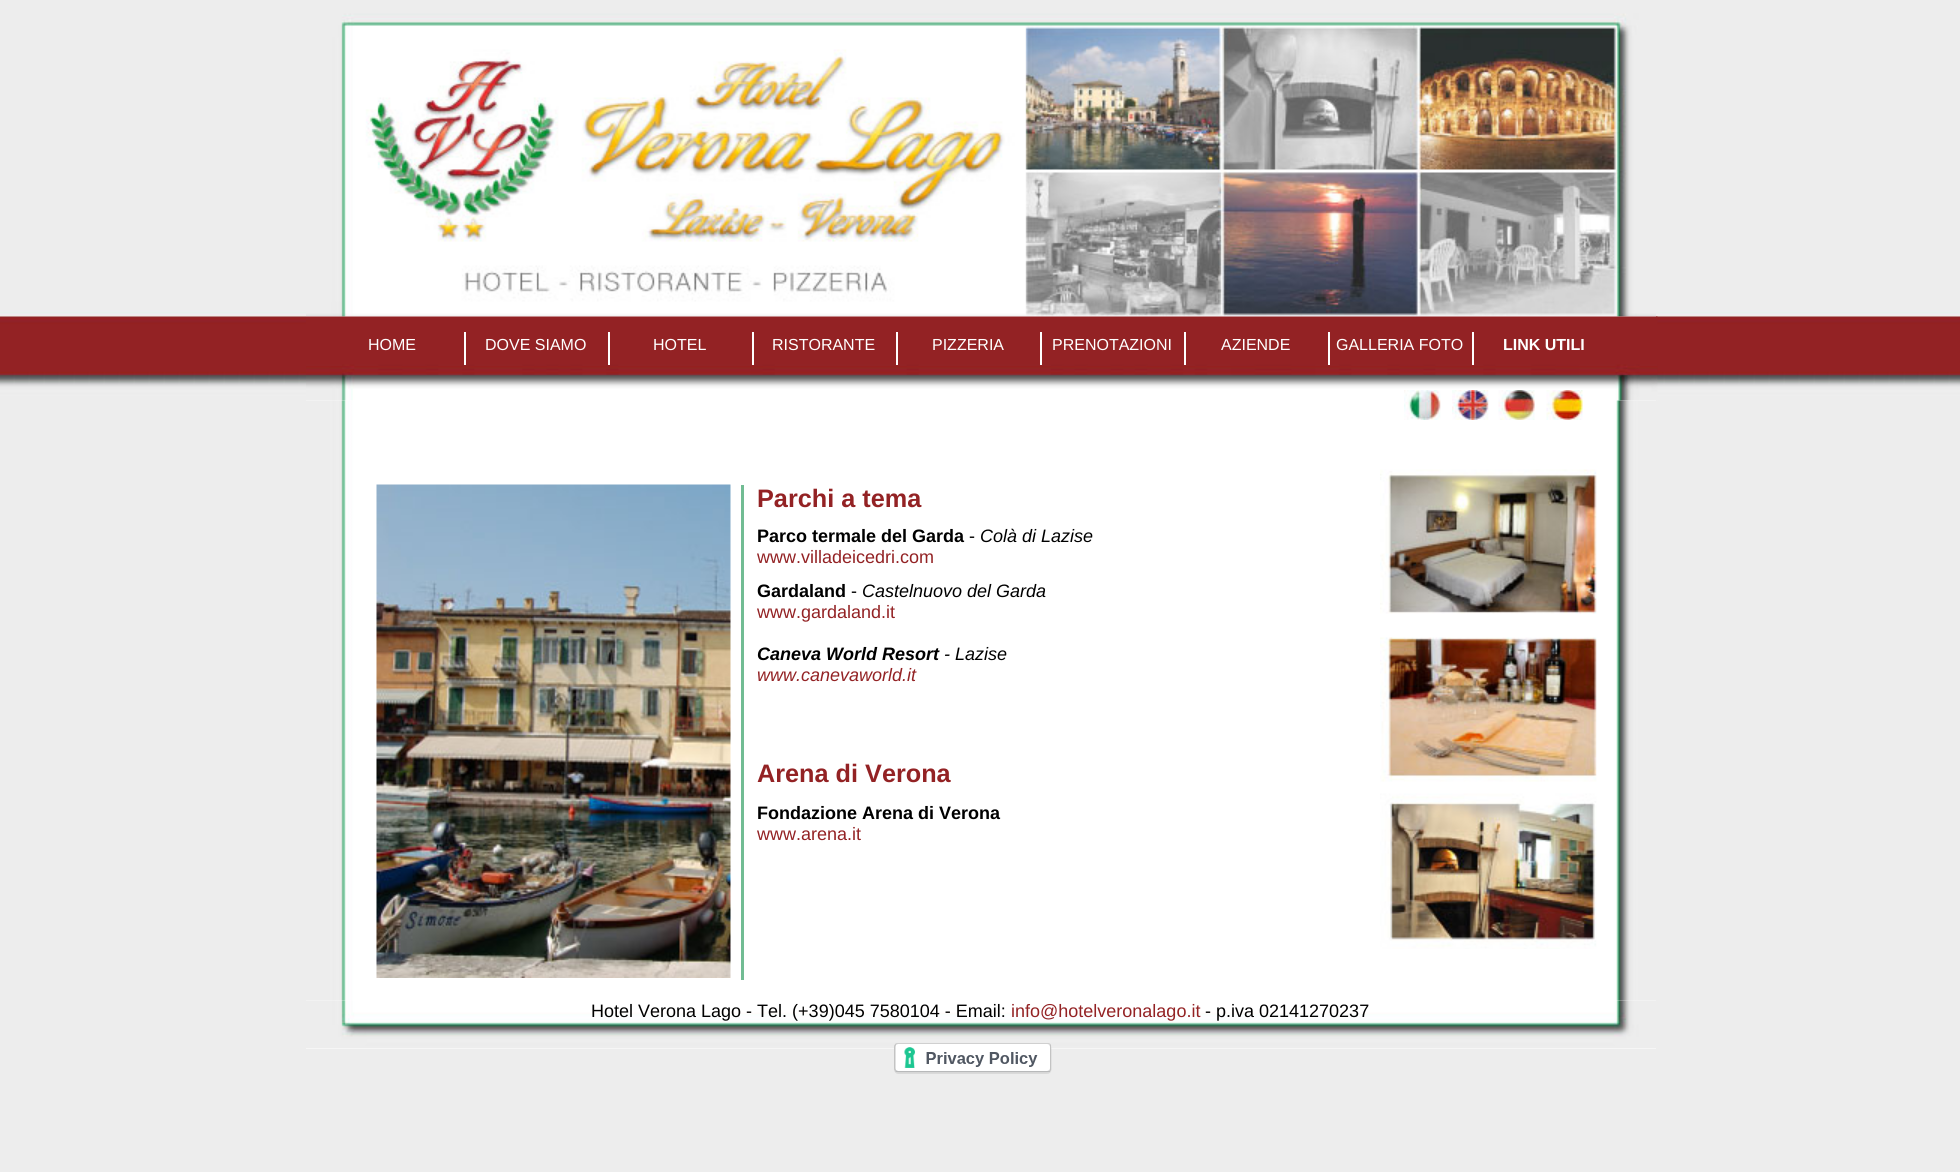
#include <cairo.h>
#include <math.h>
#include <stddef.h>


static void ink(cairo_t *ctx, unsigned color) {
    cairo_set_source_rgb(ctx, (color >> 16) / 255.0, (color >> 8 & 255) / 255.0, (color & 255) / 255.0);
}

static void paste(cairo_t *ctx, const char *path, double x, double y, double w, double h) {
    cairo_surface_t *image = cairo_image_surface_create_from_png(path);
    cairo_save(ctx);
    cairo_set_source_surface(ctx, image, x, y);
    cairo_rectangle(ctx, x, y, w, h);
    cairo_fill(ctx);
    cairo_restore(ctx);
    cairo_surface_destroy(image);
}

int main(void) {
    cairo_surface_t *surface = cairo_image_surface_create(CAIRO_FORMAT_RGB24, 1960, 1172);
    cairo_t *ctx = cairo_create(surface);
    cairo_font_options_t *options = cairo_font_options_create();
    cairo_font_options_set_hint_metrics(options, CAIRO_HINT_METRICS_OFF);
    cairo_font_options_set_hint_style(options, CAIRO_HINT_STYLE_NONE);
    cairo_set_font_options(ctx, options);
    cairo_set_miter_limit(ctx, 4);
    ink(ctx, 0xFFFFFF);
    cairo_paint(ctx);
    paste(ctx, "media/1.png", 0, 0, 1960, 1172);
    ink(ctx, 0xFFFFFF);
    cairo_rectangle(ctx, 306, 316, 1350, 733);
    cairo_fill(ctx);
    paste(ctx, "media/2.png", 306, 2, 1350, 315);
    paste(ctx, "media/3.png", 306, 316, 1352, 85);
    cairo_rectangle(ctx, 464, 332, 2, 33);
    cairo_fill(ctx);
    cairo_select_font_face(ctx, "Liberation Sans", CAIRO_FONT_SLANT_NORMAL, CAIRO_FONT_WEIGHT_NORMAL);
    cairo_set_font_size(ctx, 16);
    cairo_move_to(ctx, 368, 350);
    cairo_show_text(ctx, "HOME");
    cairo_rectangle(ctx, 608, 332, 2, 33);
    cairo_fill(ctx);
    cairo_move_to(ctx, 485, 350);
    cairo_show_text(ctx, "DOVE SIAMO");
    cairo_rectangle(ctx, 752, 332, 2, 33);
    cairo_fill(ctx);
    cairo_move_to(ctx, 653, 350);
    cairo_show_text(ctx, "HOTEL");
    cairo_rectangle(ctx, 896, 332, 2, 33);
    cairo_fill(ctx);
    cairo_move_to(ctx, 772, 350);
    cairo_show_text(ctx, "RISTORANTE");
    cairo_rectangle(ctx, 1040, 332, 2, 33);
    cairo_fill(ctx);
    cairo_move_to(ctx, 932, 350);
    cairo_show_text(ctx, "PIZZERIA");
    cairo_rectangle(ctx, 1184, 332, 2, 33);
    cairo_fill(ctx);
    cairo_move_to(ctx, 1052, 350);
    cairo_show_text(ctx, "PRENOTAZIONI");
    cairo_rectangle(ctx, 1328, 332, 2, 33);
    cairo_fill(ctx);
    cairo_move_to(ctx, 1221, 350);
    cairo_show_text(ctx, "AZIENDE");
    cairo_rectangle(ctx, 1472, 332, 2, 33);
    cairo_fill(ctx);
    cairo_move_to(ctx, 1336, 350);
    cairo_show_text(ctx, "GALLERIA FOTO");
    cairo_select_font_face(ctx, "Liberation Sans", CAIRO_FONT_SLANT_NORMAL, CAIRO_FONT_WEIGHT_BOLD);
    cairo_move_to(ctx, 1503, 350);
    cairo_show_text(ctx, "LINK UTILI");
    paste(ctx, "media/11.png", 306, 1000, 1350, 49);
    paste(ctx, "media/4.png", 306, 400, 1350, 601);
    paste(ctx, "media/5.png", 1404, 390, 37, 30);
    paste(ctx, "media/6.png", 1452, 390, 37, 30);
    paste(ctx, "media/7.png", 1498, 390, 37, 30);
    paste(ctx, "media/8.png", 1546, 390, 37, 30);
    ink(ctx, 0x71BC93);
    cairo_rectangle(ctx, 741, 485, 3, 495);
    cairo_fill(ctx);
    paste(ctx, "media/9.png", 376, 484, 355, 494);
    cairo_set_font_size(ctx, 25.25);
    ink(ctx, 0x932224);
    cairo_move_to(ctx, 757, 507);
    cairo_show_text(ctx, "Parchi a tema");
    cairo_set_font_size(ctx, 18);
    ink(ctx, 0x000000);
    cairo_move_to(ctx, 757, 542);
    cairo_show_text(ctx, "Parco termale del Garda");
    cairo_select_font_face(ctx, "Liberation Sans", CAIRO_FONT_SLANT_NORMAL, CAIRO_FONT_WEIGHT_NORMAL);
    cairo_move_to(ctx, 969, 542);
    cairo_show_text(ctx, "-");
    cairo_select_font_face(ctx, "Liberation Sans", CAIRO_FONT_SLANT_ITALIC, CAIRO_FONT_WEIGHT_NORMAL);
    cairo_move_to(ctx, 980, 542);
    cairo_show_text(ctx, "Colà di Lazise");
    cairo_select_font_face(ctx, "Liberation Sans", CAIRO_FONT_SLANT_NORMAL, CAIRO_FONT_WEIGHT_NORMAL);
    ink(ctx, 0x932224);
    cairo_move_to(ctx, 757, 563);
    cairo_show_text(ctx, "www.villadeicedri.com");
    cairo_select_font_face(ctx, "Liberation Sans", CAIRO_FONT_SLANT_NORMAL, CAIRO_FONT_WEIGHT_BOLD);
    ink(ctx, 0x000000);
    cairo_move_to(ctx, 757, 597);
    cairo_show_text(ctx, "Gardaland");
    cairo_select_font_face(ctx, "Liberation Sans", CAIRO_FONT_SLANT_NORMAL, CAIRO_FONT_WEIGHT_NORMAL);
    cairo_move_to(ctx, 851, 597);
    cairo_show_text(ctx, "-");
    cairo_select_font_face(ctx, "Liberation Sans", CAIRO_FONT_SLANT_ITALIC, CAIRO_FONT_WEIGHT_NORMAL);
    cairo_move_to(ctx, 862, 597);
    cairo_show_text(ctx, "Castelnuovo del Garda");
    cairo_select_font_face(ctx, "Liberation Sans", CAIRO_FONT_SLANT_NORMAL, CAIRO_FONT_WEIGHT_NORMAL);
    ink(ctx, 0x932224);
    cairo_move_to(ctx, 757, 618);
    cairo_show_text(ctx, "www.gardaland.it");
    cairo_select_font_face(ctx, "Liberation Sans", CAIRO_FONT_SLANT_ITALIC, CAIRO_FONT_WEIGHT_BOLD);
    ink(ctx, 0x000000);
    cairo_move_to(ctx, 757, 660);
    cairo_show_text(ctx, "Caneva World Resort");
    cairo_select_font_face(ctx, "Liberation Sans", CAIRO_FONT_SLANT_ITALIC, CAIRO_FONT_WEIGHT_NORMAL);
    cairo_move_to(ctx, 944, 660);
    cairo_show_text(ctx, "- Lazise");
    ink(ctx, 0x932224);
    cairo_move_to(ctx, 757, 681);
    cairo_show_text(ctx, "www.canevaworld.it");
    cairo_select_font_face(ctx, "Liberation Sans", CAIRO_FONT_SLANT_NORMAL, CAIRO_FONT_WEIGHT_BOLD);
    cairo_set_font_size(ctx, 25.25);
    cairo_move_to(ctx, 757, 782);
    cairo_show_text(ctx, "Arena di Verona");
    cairo_set_font_size(ctx, 18);
    ink(ctx, 0x000000);
    cairo_move_to(ctx, 757, 819);
    cairo_show_text(ctx, "Fondazione Arena di Verona");
    cairo_select_font_face(ctx, "Liberation Sans", CAIRO_FONT_SLANT_NORMAL, CAIRO_FONT_WEIGHT_NORMAL);
    ink(ctx, 0x932224);
    cairo_move_to(ctx, 757, 840);
    cairo_show_text(ctx, "www.arena.it");
    paste(ctx, "media/10.png", 1380, 469, 217, 480);
    ink(ctx, 0x000000);
    cairo_move_to(ctx, 591, 1017);
    cairo_show_text(ctx, "Hotel Verona Lago - Tel. (+39)045 7580104 - Email:");
    ink(ctx, 0x932224);
    cairo_move_to(ctx, 1011, 1017);
    cairo_show_text(ctx, "info@hotelveronalago.it");
    ink(ctx, 0x000000);
    cairo_move_to(ctx, 1205, 1017);
    cairo_show_text(ctx, "- p.iva 02141270237");
    paste(ctx, "media/12.png", 894, 1043, 158, 31);
    cairo_surface_write_to_png(surface, "image.png");
    cairo_font_options_destroy(options);
    cairo_destroy(ctx);
    cairo_surface_destroy(surface);
    return 0;
}
